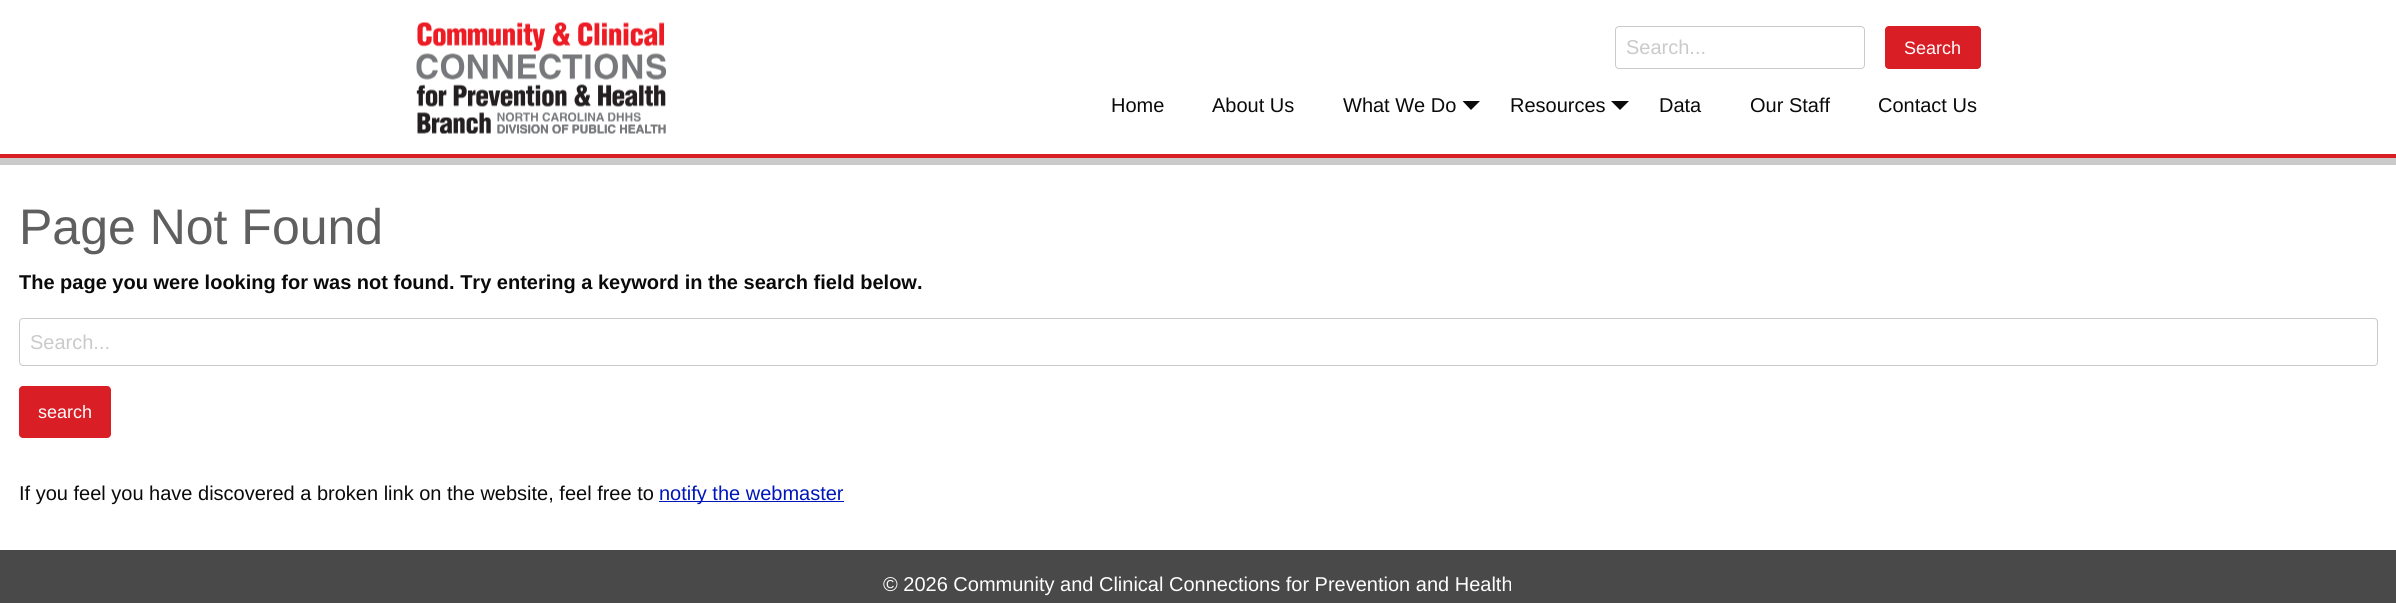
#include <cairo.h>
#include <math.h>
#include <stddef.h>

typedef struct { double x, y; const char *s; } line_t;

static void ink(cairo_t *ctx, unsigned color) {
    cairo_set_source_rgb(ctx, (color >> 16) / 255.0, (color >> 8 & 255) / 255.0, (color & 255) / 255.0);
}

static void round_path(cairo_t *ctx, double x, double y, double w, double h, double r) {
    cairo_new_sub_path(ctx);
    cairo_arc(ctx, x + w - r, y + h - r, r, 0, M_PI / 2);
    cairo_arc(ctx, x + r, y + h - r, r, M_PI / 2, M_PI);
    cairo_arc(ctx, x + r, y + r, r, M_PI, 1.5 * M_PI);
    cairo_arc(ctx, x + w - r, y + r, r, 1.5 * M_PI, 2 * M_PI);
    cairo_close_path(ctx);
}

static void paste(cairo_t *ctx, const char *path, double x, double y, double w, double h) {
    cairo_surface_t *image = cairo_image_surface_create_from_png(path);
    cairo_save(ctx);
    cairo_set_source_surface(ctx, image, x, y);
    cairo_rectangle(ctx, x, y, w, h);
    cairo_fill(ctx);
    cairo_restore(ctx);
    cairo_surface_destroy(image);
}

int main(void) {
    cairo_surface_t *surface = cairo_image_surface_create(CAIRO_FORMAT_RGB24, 2396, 603);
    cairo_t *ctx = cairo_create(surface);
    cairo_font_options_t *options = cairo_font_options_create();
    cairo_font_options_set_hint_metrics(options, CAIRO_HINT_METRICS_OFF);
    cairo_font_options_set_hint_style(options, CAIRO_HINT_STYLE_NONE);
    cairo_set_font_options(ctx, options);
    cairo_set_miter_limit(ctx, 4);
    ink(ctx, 0xFFFFFF);
    cairo_paint(ctx);
    ink(ctx, 0xD91E25);
    cairo_rectangle(ctx, 0, 154, 2396, 4);
    cairo_fill(ctx);
    paste(ctx, "media/1.png", 416, 22, 250, 112);
    round_path(ctx, 1615.5, 26.5, 249, 42, 3.5);
    ink(ctx, 0xCACACA);
    cairo_set_line_width(ctx, 1);
    cairo_stroke(ctx);
    cairo_select_font_face(ctx, "Liberation Sans", CAIRO_FONT_SLANT_NORMAL, CAIRO_FONT_WEIGHT_NORMAL);
    cairo_set_font_size(ctx, 20);
    cairo_move_to(ctx, 1626, 54);
    cairo_show_text(ctx, "Search...");
    ink(ctx, 0xD91E25);
    round_path(ctx, 1885, 26, 96, 43, 4);
    cairo_fill(ctx);
    cairo_set_font_size(ctx, 18);
    ink(ctx, 0xFEFEFE);
    cairo_move_to(ctx, 1904, 54);
    cairo_show_text(ctx, "Search");
    cairo_set_font_size(ctx, 20);
    ink(ctx, 0x0A0A0A);
    {
        static const line_t items[] = {
            {1111, 112, "Home"},
            {1212, 112, "About Us"},
            {1343, 112, "What We Do"},
        };
        for (size_t i = 0; i < sizeof items / sizeof *items; i++) {
            cairo_move_to(ctx, items[i].x, items[i].y);
            cairo_show_text(ctx, items[i].s);
        }
    }
    cairo_new_path(ctx);
    cairo_move_to(ctx, 1462.5, 101);
    cairo_line_to(ctx, 1480, 101);
    cairo_line_to(ctx, 1471, 110);
    cairo_close_path(ctx);
    cairo_fill(ctx);
    cairo_move_to(ctx, 1510, 112);
    cairo_show_text(ctx, "Resources");
    cairo_new_path(ctx);
    cairo_move_to(ctx, 1611, 101);
    cairo_line_to(ctx, 1629, 101);
    cairo_line_to(ctx, 1620, 110);
    cairo_close_path(ctx);
    cairo_fill(ctx);
    {
        static const line_t items[] = {
            {1659, 112, "Data"},
            {1750, 112, "Our Staff"},
            {1878, 112, "Contact Us"},
        };
        for (size_t i = 0; i < sizeof items / sizeof *items; i++) {
            cairo_move_to(ctx, items[i].x, items[i].y);
            cairo_show_text(ctx, items[i].s);
        }
    }
    ink(ctx, 0xCACACA);
    cairo_rectangle(ctx, 0, 158, 2396, 7);
    cairo_fill(ctx);
    cairo_set_font_size(ctx, 50);
    ink(ctx, 0x5F5F5F);
    cairo_move_to(ctx, 19, 244);
    cairo_show_text(ctx, "Page Not Found");
    cairo_select_font_face(ctx, "Liberation Sans", CAIRO_FONT_SLANT_NORMAL, CAIRO_FONT_WEIGHT_BOLD);
    cairo_set_font_size(ctx, 20);
    ink(ctx, 0x0A0A0A);
    cairo_move_to(ctx, 19, 289);
    cairo_show_text(ctx, "The page you were looking for was not found. Try entering a keyword in the search field below.");
    round_path(ctx, 19.5, 318.5, 2358, 47, 3.5);
    ink(ctx, 0xCACACA);
    cairo_stroke(ctx);
    cairo_select_font_face(ctx, "Liberation Sans", CAIRO_FONT_SLANT_NORMAL, CAIRO_FONT_WEIGHT_NORMAL);
    cairo_move_to(ctx, 30, 349);
    cairo_show_text(ctx, "Search...");
    ink(ctx, 0xD91E25);
    round_path(ctx, 19, 386, 92, 52, 4);
    cairo_fill(ctx);
    cairo_set_font_size(ctx, 18);
    ink(ctx, 0xFEFEFE);
    cairo_move_to(ctx, 38, 418);
    cairo_show_text(ctx, "search");
    cairo_set_font_size(ctx, 20);
    ink(ctx, 0x0A0A0A);
    cairo_move_to(ctx, 19, 500);
    cairo_show_text(ctx, "If you feel you have discovered a broken link on the website, feel free to");
    ink(ctx, 0x0016BA);
    cairo_rectangle(ctx, 659, 501, 185, 1);
    cairo_fill(ctx);
    cairo_move_to(ctx, 659, 500);
    cairo_show_text(ctx, "notify the webmaster");
    ink(ctx, 0x494949);
    cairo_rectangle(ctx, 0, 550, 2396, 53);
    cairo_fill(ctx);
    ink(ctx, 0xFEFEFE);
    cairo_move_to(ctx, 883, 591);
    cairo_show_text(ctx, "© 2026 Community and Clinical Connections for Prevention and Health");
    cairo_surface_write_to_png(surface, "image.png");
    cairo_font_options_destroy(options);
    cairo_destroy(ctx);
    cairo_surface_destroy(surface);
    return 0;
}
